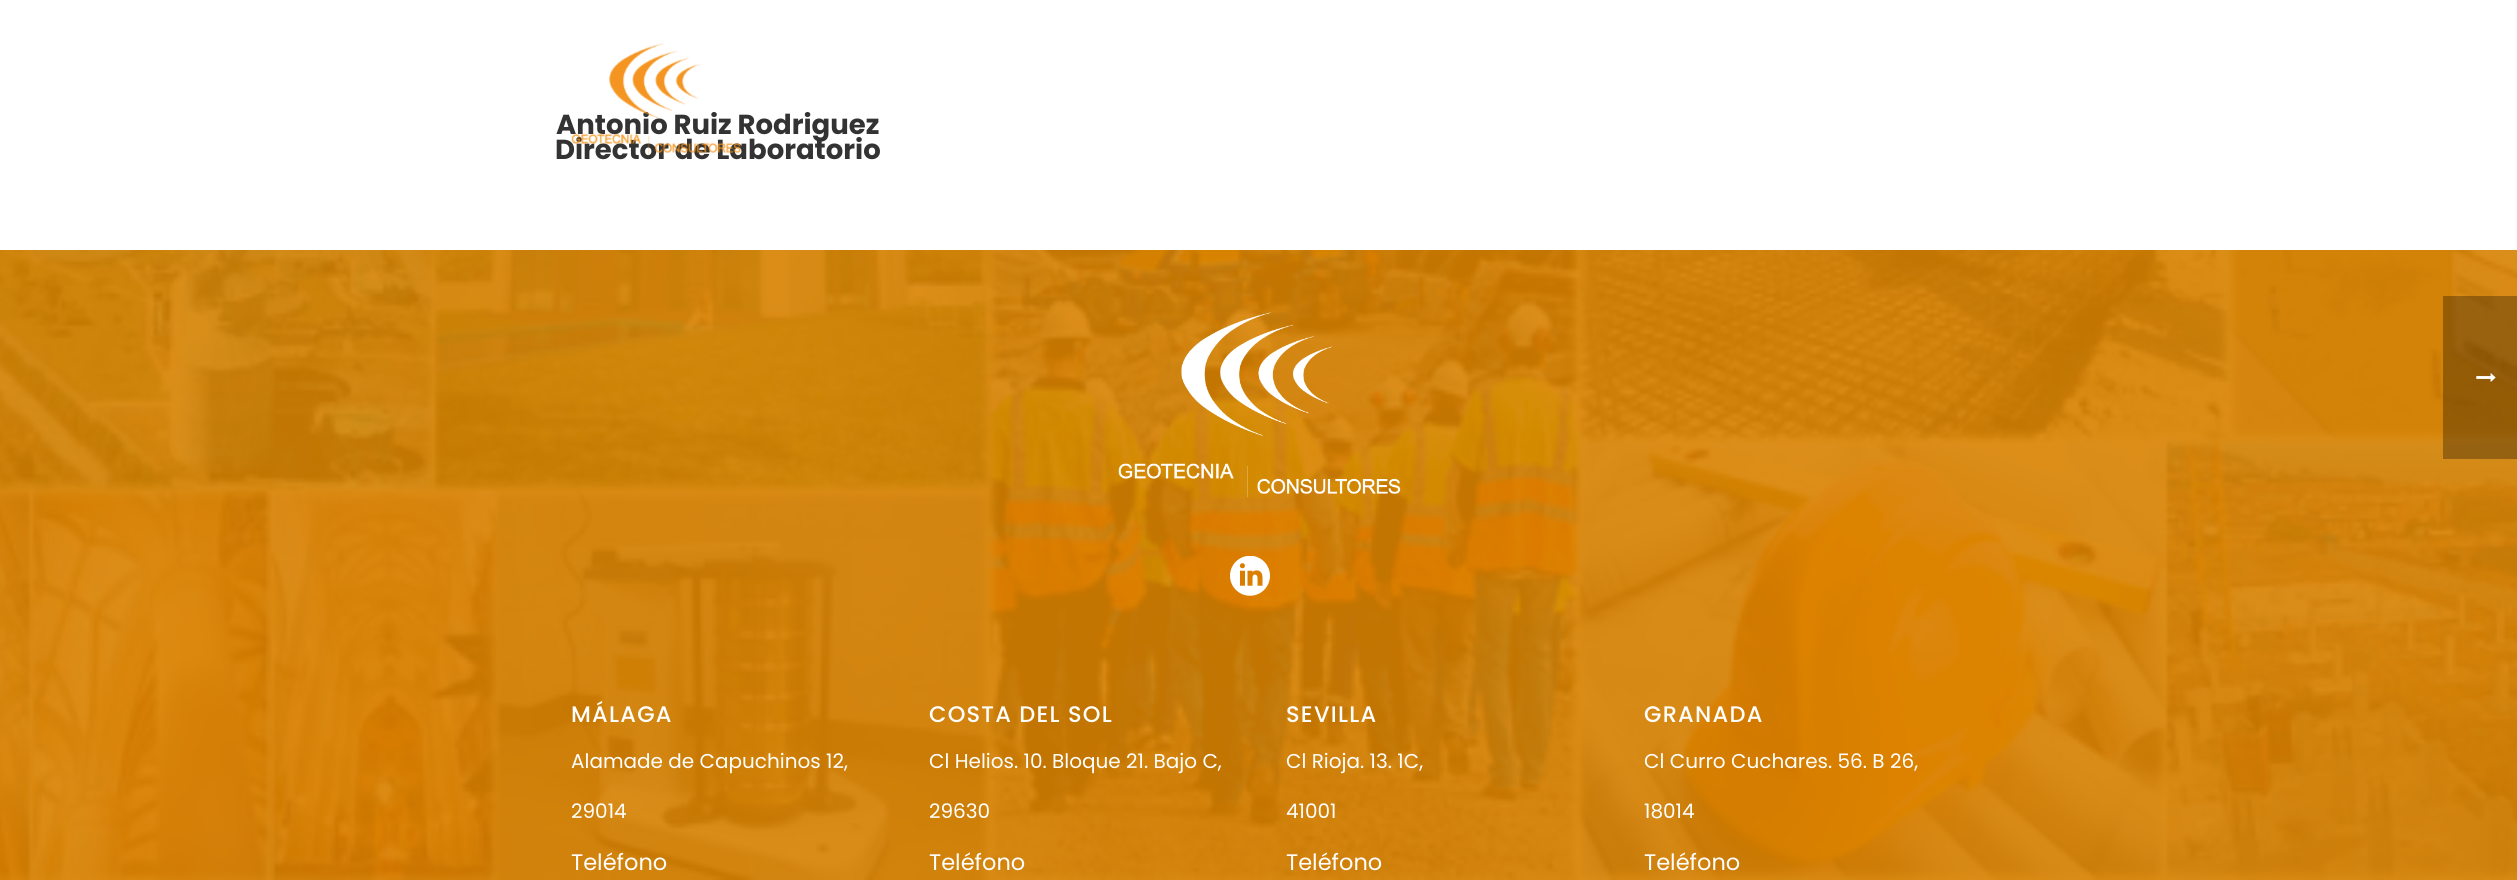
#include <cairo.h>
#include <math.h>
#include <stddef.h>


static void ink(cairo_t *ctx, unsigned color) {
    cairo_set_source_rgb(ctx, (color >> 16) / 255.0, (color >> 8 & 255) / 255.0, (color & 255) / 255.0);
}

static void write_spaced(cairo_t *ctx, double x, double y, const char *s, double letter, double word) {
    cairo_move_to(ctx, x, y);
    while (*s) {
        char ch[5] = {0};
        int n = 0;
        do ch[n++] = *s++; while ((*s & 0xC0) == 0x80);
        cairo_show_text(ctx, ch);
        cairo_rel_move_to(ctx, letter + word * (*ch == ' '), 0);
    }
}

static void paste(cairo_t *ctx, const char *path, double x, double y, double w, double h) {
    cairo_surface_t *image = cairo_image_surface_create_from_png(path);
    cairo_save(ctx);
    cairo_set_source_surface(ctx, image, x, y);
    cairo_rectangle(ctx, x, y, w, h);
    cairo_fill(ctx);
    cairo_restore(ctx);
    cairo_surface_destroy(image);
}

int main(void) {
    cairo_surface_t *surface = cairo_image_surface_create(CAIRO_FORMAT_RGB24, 2517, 880);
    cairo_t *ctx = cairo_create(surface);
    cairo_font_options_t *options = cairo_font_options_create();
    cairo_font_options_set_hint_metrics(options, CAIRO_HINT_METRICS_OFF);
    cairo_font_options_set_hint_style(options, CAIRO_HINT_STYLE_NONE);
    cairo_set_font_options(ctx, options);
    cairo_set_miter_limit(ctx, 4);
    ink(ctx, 0xFFFFFF);
    cairo_paint(ctx);
    cairo_select_font_face(ctx, "Poppins", CAIRO_FONT_SLANT_NORMAL, CAIRO_FONT_WEIGHT_BOLD);
    cairo_set_font_size(ctx, 27.5);
    ink(ctx, 0x333333);
    cairo_move_to(ctx, 556, 134);
    cairo_show_text(ctx, "Antonio Ruiz Rodriguez");
    cairo_move_to(ctx, 555, 159);
    cairo_show_text(ctx, "Director de Laboratorio");
    paste(ctx, "media/1.png", 571, 43, 171, 112);
    paste(ctx, "media/2.png", 0, 250, 2517, 630);
    paste(ctx, "media/3.png", 1118, 312, 283, 186);
    paste(ctx, "media/4.png", 1230, 556, 40, 40);
    cairo_select_font_face(ctx, "Poppins Medium", CAIRO_FONT_SLANT_NORMAL, CAIRO_FONT_WEIGHT_NORMAL);
    cairo_set_font_size(ctx, 22.5);
    ink(ctx, 0xFFFFFF);
    write_spaced(ctx, 571, 722, "MÁLAGA", 1.25, 0);
    cairo_select_font_face(ctx, "Poppins", CAIRO_FONT_SLANT_NORMAL, CAIRO_FONT_WEIGHT_NORMAL);
    cairo_set_font_size(ctx, 20);
    cairo_move_to(ctx, 571, 768);
    cairo_show_text(ctx, "Alamade de Capuchinos 12,");
    cairo_move_to(ctx, 571, 818);
    cairo_show_text(ctx, "29014");
    cairo_set_font_size(ctx, 22.5);
    cairo_move_to(ctx, 571, 870);
    cairo_show_text(ctx, "Teléfono");
    cairo_select_font_face(ctx, "Poppins Medium", CAIRO_FONT_SLANT_NORMAL, CAIRO_FONT_WEIGHT_NORMAL);
    write_spaced(ctx, 929, 722, "COSTA DEL SOL", 1.25, 0);
    cairo_select_font_face(ctx, "Poppins", CAIRO_FONT_SLANT_NORMAL, CAIRO_FONT_WEIGHT_NORMAL);
    cairo_set_font_size(ctx, 20);
    cairo_move_to(ctx, 929, 768);
    cairo_show_text(ctx, "Cl Helios. 10. Bloque 21. Bajo C,");
    cairo_move_to(ctx, 929, 818);
    cairo_show_text(ctx, "29630");
    cairo_set_font_size(ctx, 22.5);
    cairo_move_to(ctx, 929, 870);
    cairo_show_text(ctx, "Teléfono");
    cairo_select_font_face(ctx, "Poppins Medium", CAIRO_FONT_SLANT_NORMAL, CAIRO_FONT_WEIGHT_NORMAL);
    write_spaced(ctx, 1286, 722, "SEVILLA", 1.25, 0);
    cairo_select_font_face(ctx, "Poppins", CAIRO_FONT_SLANT_NORMAL, CAIRO_FONT_WEIGHT_NORMAL);
    cairo_set_font_size(ctx, 20);
    cairo_move_to(ctx, 1286, 768);
    cairo_show_text(ctx, "Cl Rioja. 13. 1C,");
    cairo_move_to(ctx, 1286, 818);
    cairo_show_text(ctx, "41001");
    cairo_set_font_size(ctx, 22.5);
    cairo_move_to(ctx, 1286, 870);
    cairo_show_text(ctx, "Teléfono");
    cairo_select_font_face(ctx, "Poppins Medium", CAIRO_FONT_SLANT_NORMAL, CAIRO_FONT_WEIGHT_NORMAL);
    write_spaced(ctx, 1644, 722, "GRANADA", 1.25, 0);
    cairo_select_font_face(ctx, "Poppins", CAIRO_FONT_SLANT_NORMAL, CAIRO_FONT_WEIGHT_NORMAL);
    cairo_set_font_size(ctx, 20);
    cairo_move_to(ctx, 1644, 768);
    cairo_show_text(ctx, "Cl Curro Cuchares. 56. B 26,");
    cairo_move_to(ctx, 1644, 818);
    cairo_show_text(ctx, "18014");
    cairo_set_font_size(ctx, 22.5);
    cairo_move_to(ctx, 1644, 870);
    cairo_show_text(ctx, "Teléfono");
    cairo_set_source_rgba(ctx, 0, 0, 0, 0.3);
    cairo_rectangle(ctx, 2443, 296, 74, 163);
    cairo_fill(ctx);
    paste(ctx, "media/5.png", 2476, 373, 20, 9);
    cairo_surface_write_to_png(surface, "image.png");
    cairo_font_options_destroy(options);
    cairo_destroy(ctx);
    cairo_surface_destroy(surface);
    return 0;
}
